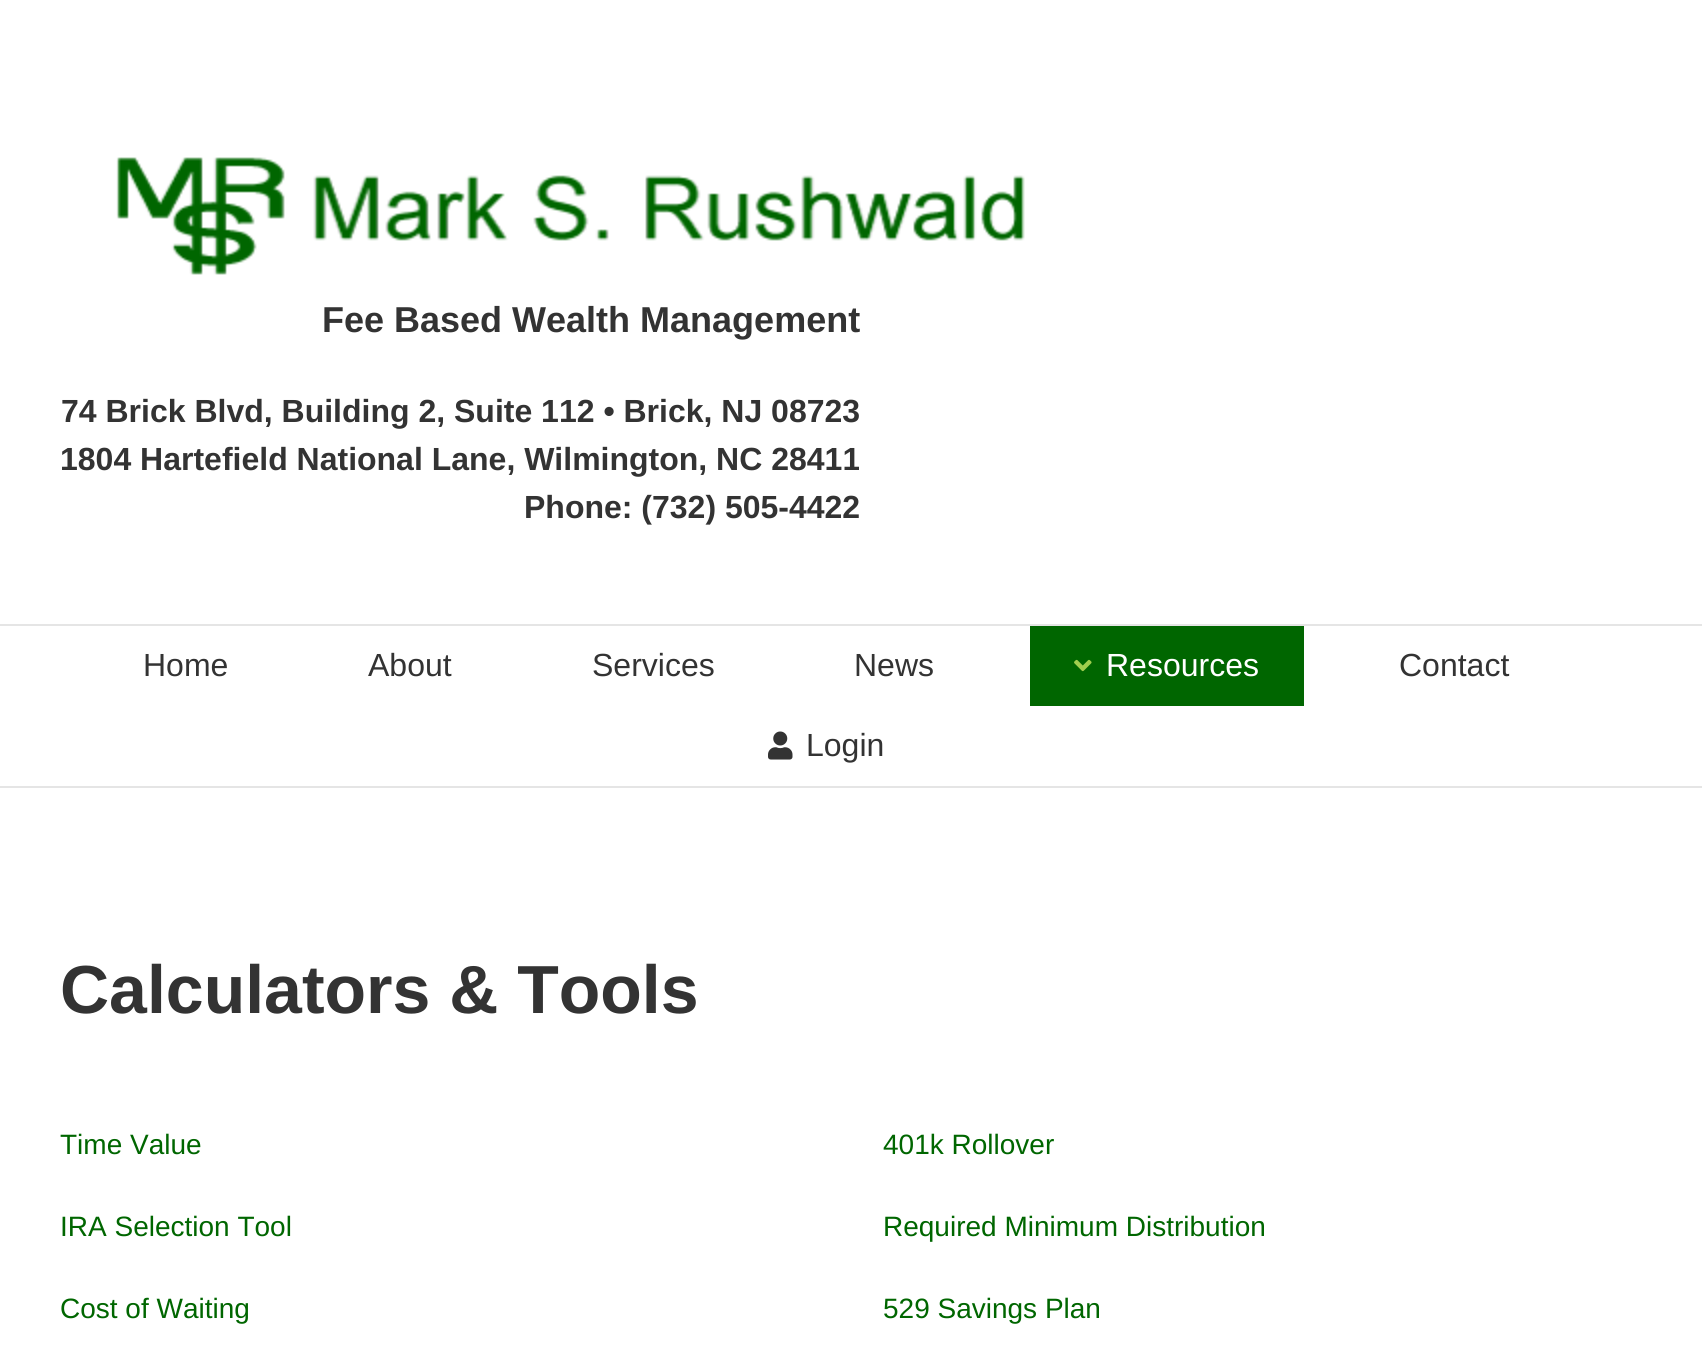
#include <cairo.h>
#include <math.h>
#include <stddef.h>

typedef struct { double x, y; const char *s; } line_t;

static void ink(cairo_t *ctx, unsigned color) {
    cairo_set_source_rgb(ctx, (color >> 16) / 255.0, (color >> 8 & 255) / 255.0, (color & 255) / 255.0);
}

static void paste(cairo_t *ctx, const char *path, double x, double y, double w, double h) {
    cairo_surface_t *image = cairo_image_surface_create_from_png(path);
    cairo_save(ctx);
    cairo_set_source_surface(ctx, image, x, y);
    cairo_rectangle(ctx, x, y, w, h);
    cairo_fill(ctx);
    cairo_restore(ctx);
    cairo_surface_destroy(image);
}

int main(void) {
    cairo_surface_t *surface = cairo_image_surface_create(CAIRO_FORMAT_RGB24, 1702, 1371);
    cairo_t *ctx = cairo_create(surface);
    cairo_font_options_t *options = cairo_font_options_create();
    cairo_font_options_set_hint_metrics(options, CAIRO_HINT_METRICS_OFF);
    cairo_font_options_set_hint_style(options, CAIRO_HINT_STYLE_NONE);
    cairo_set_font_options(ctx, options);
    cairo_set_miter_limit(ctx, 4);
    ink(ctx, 0xFFFFFF);
    cairo_paint(ctx);
    ink(ctx, 0xE5E5E5);
    cairo_rectangle(ctx, 0, 624, 1702, 2);
    cairo_fill(ctx);
    paste(ctx, "media/1.png", 116, 157, 909, 118);
    cairo_select_font_face(ctx, "Liberation Sans", CAIRO_FONT_SLANT_NORMAL, CAIRO_FONT_WEIGHT_BOLD);
    cairo_set_font_size(ctx, 36);
    ink(ctx, 0x333333);
    cairo_move_to(ctx, 322, 332);
    cairo_show_text(ctx, "Fee Based Wealth Management");
    cairo_set_font_size(ctx, 32);
    {
        static const line_t items[] = {
            {61, 422, "74 Brick Blvd, Building 2, Suite 112 • Brick, NJ 08723"},
            {60, 470, "1804 Hartefield National Lane, Wilmington, NC 28411"},
            {524, 518, "Phone: (732) 505-4422"},
        };
        for (size_t i = 0; i < sizeof items / sizeof *items; i++) {
            cairo_move_to(ctx, items[i].x, items[i].y);
            cairo_show_text(ctx, items[i].s);
        }
    }
    ink(ctx, 0xE5E5E5);
    cairo_rectangle(ctx, 0, 786, 1702, 2);
    cairo_fill(ctx);
    cairo_select_font_face(ctx, "Liberation Sans", CAIRO_FONT_SLANT_NORMAL, CAIRO_FONT_WEIGHT_NORMAL);
    ink(ctx, 0x333333);
    {
        static const line_t items[] = {
            {143, 676, "Home"},
            {368, 676, "About"},
            {592, 676, "Services"},
            {854, 676, "News"},
        };
        for (size_t i = 0; i < sizeof items / sizeof *items; i++) {
            cairo_move_to(ctx, items[i].x, items[i].y);
            cairo_show_text(ctx, items[i].s);
        }
    }
    ink(ctx, 0x006600);
    cairo_rectangle(ctx, 1030, 626, 274, 80);
    cairo_fill(ctx);
    paste(ctx, "media/2.png", 1074, 659, 18, 13);
    ink(ctx, 0xFFFFFF);
    cairo_move_to(ctx, 1106, 676);
    cairo_show_text(ctx, "Resources");
    ink(ctx, 0x333333);
    cairo_move_to(ctx, 1399, 676);
    cairo_show_text(ctx, "Contact");
    paste(ctx, "media/3.png", 768, 731, 25, 29);
    cairo_move_to(ctx, 806, 756);
    cairo_show_text(ctx, "Login");
    cairo_select_font_face(ctx, "Liberation Sans", CAIRO_FONT_SLANT_NORMAL, CAIRO_FONT_WEIGHT_BOLD);
    cairo_set_font_size(ctx, 68);
    cairo_move_to(ctx, 60, 1013);
    cairo_show_text(ctx, "Calculators & Tools");
    cairo_select_font_face(ctx, "Liberation Sans", CAIRO_FONT_SLANT_NORMAL, CAIRO_FONT_WEIGHT_NORMAL);
    cairo_set_font_size(ctx, 28);
    ink(ctx, 0x006600);
    {
        static const line_t items[] = {
            {60, 1154, "Time Value"},
            {60, 1236, "IRA Selection Tool"},
            {60, 1318, "Cost of Waiting"},
            {883, 1154, "401k Rollover"},
            {883, 1236, "Required Minimum Distribution"},
            {883, 1318, "529 Savings Plan"},
        };
        for (size_t i = 0; i < sizeof items / sizeof *items; i++) {
            cairo_move_to(ctx, items[i].x, items[i].y);
            cairo_show_text(ctx, items[i].s);
        }
    }
    cairo_surface_write_to_png(surface, "image.png");
    cairo_font_options_destroy(options);
    cairo_destroy(ctx);
    cairo_surface_destroy(surface);
    return 0;
}
